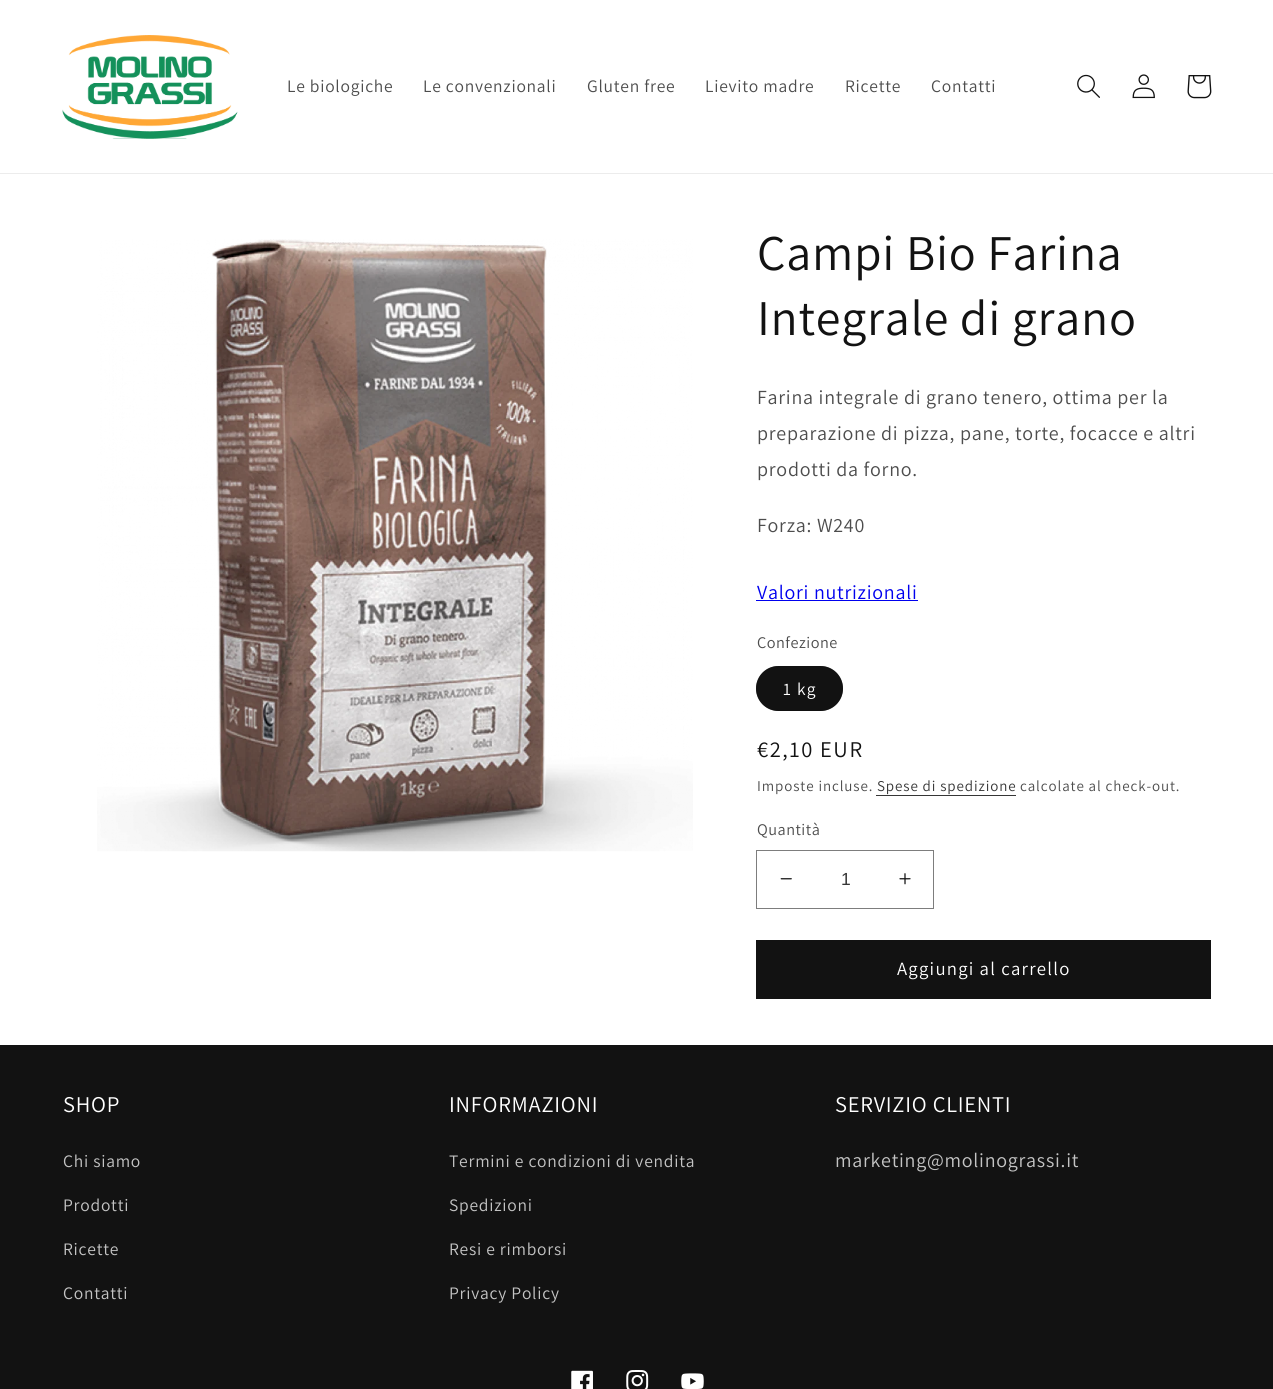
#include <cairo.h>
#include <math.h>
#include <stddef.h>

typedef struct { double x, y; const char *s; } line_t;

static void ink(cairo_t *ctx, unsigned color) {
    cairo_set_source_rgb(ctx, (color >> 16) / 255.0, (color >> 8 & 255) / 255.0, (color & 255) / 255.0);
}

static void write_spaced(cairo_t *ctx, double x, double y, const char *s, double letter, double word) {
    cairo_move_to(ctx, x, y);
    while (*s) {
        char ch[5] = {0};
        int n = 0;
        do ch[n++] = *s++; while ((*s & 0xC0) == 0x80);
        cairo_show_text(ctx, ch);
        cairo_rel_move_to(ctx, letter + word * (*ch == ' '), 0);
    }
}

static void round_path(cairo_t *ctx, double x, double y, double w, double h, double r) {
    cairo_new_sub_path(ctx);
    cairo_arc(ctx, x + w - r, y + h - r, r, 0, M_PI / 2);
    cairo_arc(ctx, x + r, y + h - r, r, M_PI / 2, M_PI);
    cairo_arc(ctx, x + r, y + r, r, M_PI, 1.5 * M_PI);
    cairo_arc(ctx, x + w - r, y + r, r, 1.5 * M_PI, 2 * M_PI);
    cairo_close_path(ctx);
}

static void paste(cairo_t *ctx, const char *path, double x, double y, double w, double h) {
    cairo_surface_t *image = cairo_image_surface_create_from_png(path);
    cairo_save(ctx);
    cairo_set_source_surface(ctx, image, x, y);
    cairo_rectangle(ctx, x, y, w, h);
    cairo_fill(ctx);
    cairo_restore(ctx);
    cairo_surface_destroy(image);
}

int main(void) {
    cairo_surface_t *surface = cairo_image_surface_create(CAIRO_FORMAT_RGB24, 1273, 1389);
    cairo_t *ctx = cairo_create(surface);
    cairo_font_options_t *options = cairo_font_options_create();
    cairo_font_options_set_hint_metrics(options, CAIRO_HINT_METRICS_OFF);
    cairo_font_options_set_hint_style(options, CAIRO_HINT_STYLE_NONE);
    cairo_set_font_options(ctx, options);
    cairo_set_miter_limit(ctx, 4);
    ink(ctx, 0xFFFFFF);
    cairo_paint(ctx);
    ink(ctx, 0xECECEC);
    cairo_rectangle(ctx, 0, 173, 1273, 1);
    cairo_fill(ctx);
    paste(ctx, "media/1.png", 62, 35, 176, 104);
    cairo_select_font_face(ctx, "Assistant", CAIRO_FONT_SLANT_NORMAL, CAIRO_FONT_WEIGHT_NORMAL);
    cairo_set_font_size(ctx, 17.5);
    ink(ctx, 0x4D4D4D);
    {
        static const line_t items[] = {
            {287, 92, "Le biologiche"},
            {423, 92, "Le convenzionali"},
            {587, 92, "Gluten free"},
            {705, 92, "Lievito madre"},
            {845, 92, "Ricette"},
            {931, 92, "Contatti"},
        };
        for (size_t i = 0; i < sizeof items / sizeof *items; i++) {
            write_spaced(ctx, items[i].x, items[i].y, items[i].s, 0.75, 0);
        }
    }
    paste(ctx, "media/2.png", 1077, 74, 23, 24);
    paste(ctx, "media/3.png", 1132, 74, 23, 25);
    paste(ctx, "media/4.png", 1187, 75, 25, 24);
    paste(ctx, "media/5.png", 97, 239, 596, 613);
    cairo_set_font_size(ctx, 50);
    ink(ctx, 0x121212);
    write_spaced(ctx, 757, 270, "Campi Bio Farina", 0.75, 0);
    write_spaced(ctx, 757, 335, "Integrale di grano", 0.75, 0);
    cairo_set_font_size(ctx, 20);
    ink(ctx, 0x4D4D4D);
    {
        static const line_t items[] = {
            {757, 404, "Farina integrale di grano tenero, ottima per la"},
            {757, 440, "preparazione di pizza, pane, torte, focacce e altri"},
            {757, 476, "prodotti da forno."},
            {757, 532, "Forza: W240"},
        };
        for (size_t i = 0; i < sizeof items / sizeof *items; i++) {
            write_spaced(ctx, items[i].x, items[i].y, items[i].s, 0.75, 0);
        }
    }
    ink(ctx, 0x0000EE);
    write_spaced(ctx, 757, 599, "Valori nutrizionali", 0.75, 0);
    cairo_rectangle(ctx, 756, 600, 162, 1);
    cairo_fill(ctx);
    cairo_set_font_size(ctx, 16.25);
    ink(ctx, 0x4D4D4D);
    write_spaced(ctx, 757, 648, "Confezione", 0.5, 0);
    ink(ctx, 0x121212);
    round_path(ctx, 756, 666, 87, 45, 22.5);
    cairo_fill(ctx);
    round_path(ctx, 756.5, 666.5, 86, 44, 22);
    cairo_set_source_rgba(ctx, 0.071, 0.071, 0.071, 0.55);
    cairo_set_line_width(ctx, 1);
    cairo_stroke(ctx);
    cairo_set_font_size(ctx, 17.5);
    ink(ctx, 0xFFFFFF);
    write_spaced(ctx, 783, 695, "1 kg", 1.25, 0);
    cairo_set_font_size(ctx, 22.5);
    ink(ctx, 0x121212);
    write_spaced(ctx, 757, 757, "€2,10 EUR", 1.6, 0);
    cairo_set_font_size(ctx, 15);
    ink(ctx, 0x4D4D4D);
    write_spaced(ctx, 757, 791, "Imposte incluse.", 0.9, 0);
    ink(ctx, 0x363636);
    write_spaced(ctx, 877, 791, "Spese di spedizione", 0.9, 0);
    cairo_rectangle(ctx, 876, 795, 140, 1);
    cairo_fill(ctx);
    ink(ctx, 0x4D4D4D);
    write_spaced(ctx, 1020, 791, "calcolate al check-out.", 0.9, 0);
    cairo_set_font_size(ctx, 16.25);
    write_spaced(ctx, 757, 835, "Quantità", 0.5, 0);
    paste(ctx, "media/6.png", 780, 878, 12, 2);
    paste(ctx, "media/7.png", 899, 873, 12, 12);
    cairo_rectangle(ctx, 756.5, 850.5, 177, 58);
    ink(ctx, 0x7D7D7D);
    cairo_stroke(ctx);
    cairo_select_font_face(ctx, "Liberation Sans", CAIRO_FONT_SLANT_NORMAL, CAIRO_FONT_WEIGHT_NORMAL);
    cairo_set_font_size(ctx, 17.5);
    ink(ctx, 0x363636);
    cairo_move_to(ctx, 841, 885);
    cairo_show_text(ctx, "1");
    ink(ctx, 0x121212);
    cairo_rectangle(ctx, 756, 940, 455, 59);
    cairo_fill(ctx);
    cairo_select_font_face(ctx, "Assistant", CAIRO_FONT_SLANT_NORMAL, CAIRO_FONT_WEIGHT_NORMAL);
    cairo_set_font_size(ctx, 18.75);
    ink(ctx, 0xFFFFFF);
    write_spaced(ctx, 897, 975, "Aggiungi al carrello", 1.25, 0);
    ink(ctx, 0x121212);
    cairo_rectangle(ctx, 0, 1045, 1273, 344);
    cairo_fill(ctx);
    cairo_set_font_size(ctx, 22.5);
    ink(ctx, 0xFFFFFF);
    write_spaced(ctx, 63, 1112, "SHOP", 0.75, 0);
    cairo_set_font_size(ctx, 17.5);
    ink(ctx, 0xC4C4C4);
    {
        static const line_t items[] = {
            {63, 1167, "Chi siamo"},
            {63, 1211, "Prodotti"},
            {63, 1255, "Ricette"},
            {63, 1299, "Contatti"},
        };
        for (size_t i = 0; i < sizeof items / sizeof *items; i++) {
            write_spaced(ctx, items[i].x, items[i].y, items[i].s, 0.75, 0);
        }
    }
    cairo_set_font_size(ctx, 22.5);
    ink(ctx, 0xFFFFFF);
    write_spaced(ctx, 449, 1112, "INFORMAZIONI", 0.75, 0);
    cairo_set_font_size(ctx, 17.5);
    ink(ctx, 0xC4C4C4);
    {
        static const line_t items[] = {
            {449, 1167, "Termini e condizioni di vendita"},
            {449, 1211, "Spedizioni"},
            {449, 1255, "Resi e rimborsi"},
            {449, 1299, "Privacy Policy"},
        };
        for (size_t i = 0; i < sizeof items / sizeof *items; i++) {
            write_spaced(ctx, items[i].x, items[i].y, items[i].s, 0.75, 0);
        }
    }
    cairo_set_font_size(ctx, 22.5);
    ink(ctx, 0xFFFFFF);
    write_spaced(ctx, 835, 1112, "SERVIZIO CLIENTI", 0.75, 0);
    cairo_set_font_size(ctx, 20);
    ink(ctx, 0xC4C4C4);
    write_spaced(ctx, 835, 1167, "marketing@molinograssi.it", 0.75, 0);
    paste(ctx, "media/8.png", 571, 1370, 22, 19);
    paste(ctx, "media/9.png", 626, 1370, 23, 19);
    paste(ctx, "media/10.png", 681, 1373, 23, 16);
    cairo_surface_write_to_png(surface, "image.png");
    cairo_font_options_destroy(options);
    cairo_destroy(ctx);
    cairo_surface_destroy(surface);
    return 0;
}
